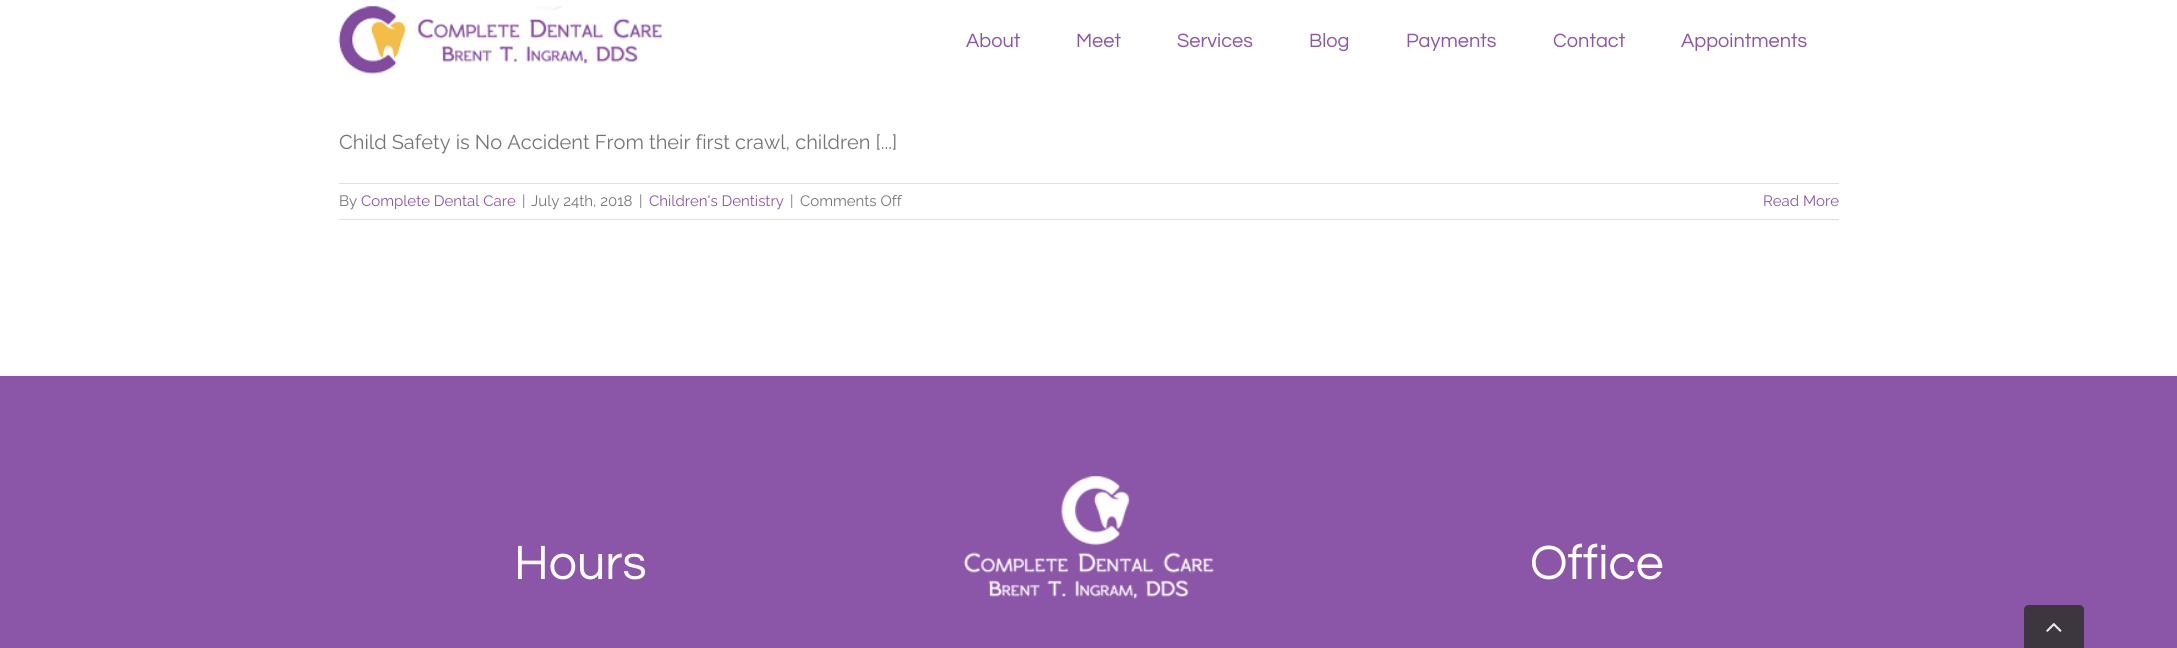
#include <cairo.h>
#include <math.h>
#include <stddef.h>

typedef struct { double x, y; const char *s; } line_t;

static void ink(cairo_t *ctx, unsigned color) {
    cairo_set_source_rgb(ctx, (color >> 16) / 255.0, (color >> 8 & 255) / 255.0, (color & 255) / 255.0);
}

static void paste(cairo_t *ctx, const char *path, double x, double y, double w, double h) {
    cairo_surface_t *image = cairo_image_surface_create_from_png(path);
    cairo_save(ctx);
    cairo_set_source_surface(ctx, image, x, y);
    cairo_rectangle(ctx, x, y, w, h);
    cairo_fill(ctx);
    cairo_restore(ctx);
    cairo_surface_destroy(image);
}

int main(void) {
    cairo_surface_t *surface = cairo_image_surface_create(CAIRO_FORMAT_RGB24, 2177, 648);
    cairo_t *ctx = cairo_create(surface);
    cairo_font_options_t *options = cairo_font_options_create();
    cairo_font_options_set_hint_metrics(options, CAIRO_HINT_METRICS_OFF);
    cairo_font_options_set_hint_style(options, CAIRO_HINT_STYLE_NONE);
    cairo_set_font_options(ctx, options);
    cairo_set_miter_limit(ctx, 4);
    ink(ctx, 0xFFFFFF);
    cairo_paint(ctx);
    paste(ctx, "media/1.png", 338, 6, 325, 69);
    cairo_select_font_face(ctx, "Questrial", CAIRO_FONT_SLANT_NORMAL, CAIRO_FONT_WEIGHT_NORMAL);
    cairo_set_font_size(ctx, 20);
    ink(ctx, 0x8B55A8);
    {
        static const line_t items[] = {
            {966, 47, "About"},
            {1076, 47, "Meet"},
            {1177, 47, "Services"},
            {1309, 47, "Blog"},
            {1406, 47, "Payments"},
            {1553, 47, "Contact"},
            {1681, 47, "Appointments"},
        };
        for (size_t i = 0; i < sizeof items / sizeof *items; i++) {
            cairo_move_to(ctx, items[i].x, items[i].y);
            cairo_show_text(ctx, items[i].s);
        }
    }
    cairo_select_font_face(ctx, "Raleway", CAIRO_FONT_SLANT_NORMAL, CAIRO_FONT_WEIGHT_NORMAL);
    ink(ctx, 0x747474);
    cairo_move_to(ctx, 339, 149);
    cairo_show_text(ctx, "Child Safety is No Accident From their first crawl, children [...]");
    ink(ctx, 0xE0DEDE);
    cairo_rectangle(ctx, 339, 183, 1500, 1);
    cairo_fill(ctx);
    cairo_rectangle(ctx, 339, 219, 1500, 1);
    cairo_fill(ctx);
    cairo_set_font_size(ctx, 15);
    ink(ctx, 0x747474);
    cairo_move_to(ctx, 339, 206);
    cairo_show_text(ctx, "By");
    ink(ctx, 0x8B55A8);
    cairo_move_to(ctx, 361, 206);
    cairo_show_text(ctx, "Complete Dental Care");
    ink(ctx, 0x747474);
    {
        static const line_t items[] = {
            {522, 206, "|"},
            {531, 206, "July 24th, 2018"},
            {639, 206, "|"},
        };
        for (size_t i = 0; i < sizeof items / sizeof *items; i++) {
            cairo_move_to(ctx, items[i].x, items[i].y);
            cairo_show_text(ctx, items[i].s);
        }
    }
    ink(ctx, 0x8B55A8);
    cairo_move_to(ctx, 649, 206);
    cairo_show_text(ctx, "Children's Dentistry");
    ink(ctx, 0x747474);
    cairo_move_to(ctx, 790, 206);
    cairo_show_text(ctx, "|");
    cairo_move_to(ctx, 800, 206);
    cairo_show_text(ctx, "Comments Off");
    ink(ctx, 0x8B55A8);
    cairo_move_to(ctx, 1763, 206);
    cairo_show_text(ctx, "Read More");
    cairo_rectangle(ctx, 0, 376, 2177, 272);
    cairo_fill(ctx);
    cairo_select_font_face(ctx, "Questrial", CAIRO_FONT_SLANT_NORMAL, CAIRO_FONT_WEIGHT_NORMAL);
    cairo_set_font_size(ctx, 50);
    ink(ctx, 0xFFFFFF);
    cairo_move_to(ctx, 514, 579);
    cairo_show_text(ctx, "Hours");
    paste(ctx, "media/2.png", 963, 476, 251, 123);
    cairo_move_to(ctx, 1530, 579);
    cairo_show_text(ctx, "Office");
    ink(ctx, 0x3C363F);
    cairo_new_path(ctx);
    cairo_move_to(ctx, 2029, 605);
    cairo_line_to(ctx, 2079, 605);
    cairo_curve_to(ctx, 2082, 605, 2084, 607, 2084, 610);
    cairo_line_to(ctx, 2084, 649);
    cairo_line_to(ctx, 2024, 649);
    cairo_line_to(ctx, 2024, 610);
    cairo_curve_to(ctx, 2024, 607, 2026, 605, 2029, 605);
    cairo_close_path(ctx);
    cairo_fill(ctx);
    paste(ctx, "media/3.png", 2046, 623, 16, 9);
    cairo_surface_write_to_png(surface, "image.png");
    cairo_font_options_destroy(options);
    cairo_destroy(ctx);
    cairo_surface_destroy(surface);
    return 0;
}
